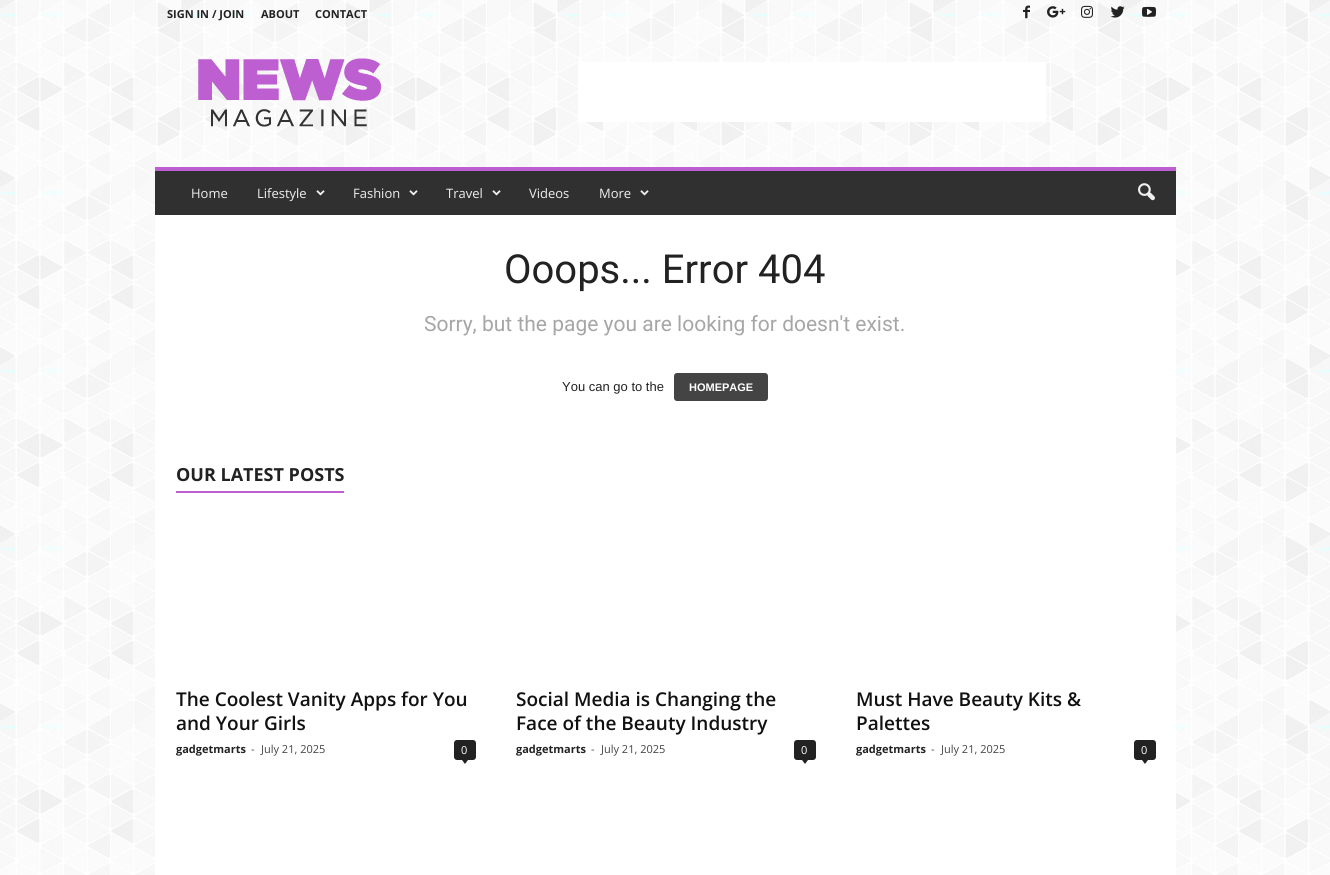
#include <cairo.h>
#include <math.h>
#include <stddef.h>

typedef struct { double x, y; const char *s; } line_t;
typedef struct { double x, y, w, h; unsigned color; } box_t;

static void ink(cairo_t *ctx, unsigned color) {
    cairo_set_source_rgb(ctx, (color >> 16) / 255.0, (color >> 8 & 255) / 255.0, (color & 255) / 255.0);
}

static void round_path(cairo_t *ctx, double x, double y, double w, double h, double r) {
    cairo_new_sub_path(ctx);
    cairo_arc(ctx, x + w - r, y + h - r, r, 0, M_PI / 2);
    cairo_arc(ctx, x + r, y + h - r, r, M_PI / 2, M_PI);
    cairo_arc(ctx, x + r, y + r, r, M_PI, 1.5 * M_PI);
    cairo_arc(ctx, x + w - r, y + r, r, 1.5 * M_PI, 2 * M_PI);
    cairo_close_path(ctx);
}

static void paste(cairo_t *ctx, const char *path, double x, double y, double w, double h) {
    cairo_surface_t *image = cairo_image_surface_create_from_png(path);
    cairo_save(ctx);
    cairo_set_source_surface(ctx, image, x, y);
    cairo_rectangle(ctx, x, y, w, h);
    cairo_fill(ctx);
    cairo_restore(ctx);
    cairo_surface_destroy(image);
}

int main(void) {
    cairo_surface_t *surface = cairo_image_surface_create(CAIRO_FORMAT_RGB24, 1330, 875);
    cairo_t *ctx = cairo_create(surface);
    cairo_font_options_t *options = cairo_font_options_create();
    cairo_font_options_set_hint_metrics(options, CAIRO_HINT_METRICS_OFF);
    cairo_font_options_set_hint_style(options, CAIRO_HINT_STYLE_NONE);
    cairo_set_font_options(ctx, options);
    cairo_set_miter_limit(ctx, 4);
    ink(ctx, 0xFFFFFF);
    cairo_paint(ctx);
    paste(ctx, "media/1.png", 0, 0, 1330, 875);
    cairo_select_font_face(ctx, "Open Sans", CAIRO_FONT_SLANT_NORMAL, CAIRO_FONT_WEIGHT_BOLD);
    cairo_set_font_size(ctx, 11);
    ink(ctx, 0x222222);
    {
        static const line_t items[] = {
            {167, 18, "SIGN IN / JOIN"},
            {261, 18, "ABOUT"},
            {315, 18, "CONTACT"},
        };
        for (size_t i = 0; i < sizeof items / sizeof *items; i++) {
            cairo_move_to(ctx, items[i].x, items[i].y);
            cairo_show_text(ctx, items[i].s);
        }
    }
    paste(ctx, "media/2.png", 1023, 5, 7, 14);
    paste(ctx, "media/3.png", 1047, 6, 19, 12);
    paste(ctx, "media/4.png", 1081, 5, 12, 13);
    paste(ctx, "media/5.png", 1110, 6, 15, 12);
    paste(ctx, "media/6.png", 1142, 6, 14, 11);
    paste(ctx, "media/7.png", 198, 58, 183, 69);
    {
        static const box_t items[] = {
            {578, 62, 468, 60, 0xFFFFFF},
            {155, 171, 1021, 44, 0x303030},
            {155, 167, 1021, 4, 0xBD5ED1},
        };
        for (size_t i = 0; i < sizeof items / sizeof *items; i++) {
            ink(ctx, items[i].color);
            cairo_rectangle(ctx, items[i].x, items[i].y, items[i].w, items[i].h);
            cairo_fill(ctx);
        }
    }
    cairo_select_font_face(ctx, "Open Sans", CAIRO_FONT_SLANT_NORMAL, CAIRO_FONT_WEIGHT_NORMAL);
    cairo_set_font_size(ctx, 13);
    ink(ctx, 0xEFEFEF);
    cairo_move_to(ctx, 191, 198);
    cairo_show_text(ctx, "Home");
    cairo_move_to(ctx, 257, 198);
    cairo_show_text(ctx, "Lifestyle");
    paste(ctx, "media/8.png", 316, 190, 9, 6);
    cairo_move_to(ctx, 353, 198);
    cairo_show_text(ctx, "Fashion");
    paste(ctx, "media/8.png", 409, 190, 9, 6);
    cairo_move_to(ctx, 446, 198);
    cairo_show_text(ctx, "Travel");
    paste(ctx, "media/8.png", 492, 190, 9, 6);
    cairo_move_to(ctx, 529, 198);
    cairo_show_text(ctx, "Videos");
    cairo_move_to(ctx, 599, 198);
    cairo_show_text(ctx, "More");
    paste(ctx, "media/8.png", 640, 190, 9, 6);
    paste(ctx, "media/9.png", 1138, 183, 17, 18);
    ink(ctx, 0xFFFFFF);
    cairo_rectangle(ctx, 155, 215, 1021, 660);
    cairo_fill(ctx);
    cairo_select_font_face(ctx, "Roboto", CAIRO_FONT_SLANT_NORMAL, CAIRO_FONT_WEIGHT_NORMAL);
    cairo_set_font_size(ctx, 40);
    ink(ctx, 0x222222);
    cairo_move_to(ctx, 504, 283);
    cairo_show_text(ctx, "Ooops... Error 404");
    cairo_set_font_size(ctx, 21);
    ink(ctx, 0xA6A6A6);
    cairo_move_to(ctx, 424, 331);
    cairo_show_text(ctx, "Sorry, but the page you are looking for doesn't exist.");
    cairo_select_font_face(ctx, "Liberation Sans", CAIRO_FONT_SLANT_NORMAL, CAIRO_FONT_WEIGHT_NORMAL);
    cairo_set_font_size(ctx, 13);
    ink(ctx, 0x222222);
    cairo_move_to(ctx, 562, 391);
    cairo_show_text(ctx, "You can go to the");
    ink(ctx, 0x444444);
    round_path(ctx, 674, 373, 94, 28, 3);
    cairo_fill(ctx);
    cairo_select_font_face(ctx, "Liberation Sans", CAIRO_FONT_SLANT_NORMAL, CAIRO_FONT_WEIGHT_BOLD);
    cairo_set_font_size(ctx, 11);
    ink(ctx, 0xFFFFFF);
    cairo_move_to(ctx, 689, 391);
    cairo_show_text(ctx, "HOMEPAGE");
    cairo_select_font_face(ctx, "Open Sans", CAIRO_FONT_SLANT_NORMAL, CAIRO_FONT_WEIGHT_BOLD);
    cairo_set_font_size(ctx, 18);
    ink(ctx, 0x222222);
    cairo_move_to(ctx, 176, 481);
    cairo_show_text(ctx, "OUR LATEST POSTS");
    ink(ctx, 0xBD5ED1);
    cairo_rectangle(ctx, 176, 491, 168, 2);
    cairo_fill(ctx);
    cairo_select_font_face(ctx, "Open Sans SemiBold", CAIRO_FONT_SLANT_NORMAL, CAIRO_FONT_WEIGHT_NORMAL);
    cairo_set_font_size(ctx, 19);
    ink(ctx, 0x111111);
    cairo_move_to(ctx, 176, 706);
    cairo_show_text(ctx, "The Coolest Vanity Apps for You");
    cairo_move_to(ctx, 176, 730);
    cairo_show_text(ctx, "and Your Girls");
    cairo_select_font_face(ctx, "Open Sans", CAIRO_FONT_SLANT_NORMAL, CAIRO_FONT_WEIGHT_BOLD);
    cairo_set_font_size(ctx, 11);
    ink(ctx, 0x222222);
    cairo_move_to(ctx, 176, 753);
    cairo_show_text(ctx, "gadgetmarts");
    cairo_select_font_face(ctx, "Open Sans", CAIRO_FONT_SLANT_NORMAL, CAIRO_FONT_WEIGHT_NORMAL);
    ink(ctx, 0x444444);
    cairo_move_to(ctx, 251, 753);
    cairo_show_text(ctx, "-");
    cairo_move_to(ctx, 261, 753);
    cairo_show_text(ctx, "July 21, 2025");
    ink(ctx, 0x222222);
    round_path(ctx, 454, 740, 22, 20, 3);
    cairo_fill(ctx);
    ink(ctx, 0xFFFFFF);
    cairo_move_to(ctx, 461, 754);
    cairo_show_text(ctx, "0");
    ink(ctx, 0x222222);
    cairo_new_path(ctx);
    cairo_move_to(ctx, 462, 760);
    cairo_line_to(ctx, 468, 760);
    cairo_line_to(ctx, 465, 764);
    cairo_close_path(ctx);
    cairo_fill(ctx);
    cairo_select_font_face(ctx, "Open Sans SemiBold", CAIRO_FONT_SLANT_NORMAL, CAIRO_FONT_WEIGHT_NORMAL);
    cairo_set_font_size(ctx, 19);
    ink(ctx, 0x111111);
    cairo_move_to(ctx, 516, 706);
    cairo_show_text(ctx, "Social Media is Changing the");
    cairo_move_to(ctx, 516, 730);
    cairo_show_text(ctx, "Face of the Beauty Industry");
    cairo_select_font_face(ctx, "Open Sans", CAIRO_FONT_SLANT_NORMAL, CAIRO_FONT_WEIGHT_BOLD);
    cairo_set_font_size(ctx, 11);
    ink(ctx, 0x222222);
    cairo_move_to(ctx, 516, 753);
    cairo_show_text(ctx, "gadgetmarts");
    cairo_select_font_face(ctx, "Open Sans", CAIRO_FONT_SLANT_NORMAL, CAIRO_FONT_WEIGHT_NORMAL);
    ink(ctx, 0x444444);
    cairo_move_to(ctx, 591, 753);
    cairo_show_text(ctx, "-");
    cairo_move_to(ctx, 601, 753);
    cairo_show_text(ctx, "July 21, 2025");
    ink(ctx, 0x222222);
    round_path(ctx, 794, 740, 22, 20, 3);
    cairo_fill(ctx);
    ink(ctx, 0xFFFFFF);
    cairo_move_to(ctx, 801, 754);
    cairo_show_text(ctx, "0");
    ink(ctx, 0x222222);
    cairo_new_path(ctx);
    cairo_move_to(ctx, 802, 760);
    cairo_line_to(ctx, 808, 760);
    cairo_line_to(ctx, 805, 764);
    cairo_close_path(ctx);
    cairo_fill(ctx);
    cairo_select_font_face(ctx, "Open Sans SemiBold", CAIRO_FONT_SLANT_NORMAL, CAIRO_FONT_WEIGHT_NORMAL);
    cairo_set_font_size(ctx, 19);
    ink(ctx, 0x111111);
    cairo_move_to(ctx, 856, 706);
    cairo_show_text(ctx, "Must Have Beauty Kits &");
    cairo_move_to(ctx, 856, 730);
    cairo_show_text(ctx, "Palettes");
    cairo_select_font_face(ctx, "Open Sans", CAIRO_FONT_SLANT_NORMAL, CAIRO_FONT_WEIGHT_BOLD);
    cairo_set_font_size(ctx, 11);
    ink(ctx, 0x222222);
    cairo_move_to(ctx, 856, 753);
    cairo_show_text(ctx, "gadgetmarts");
    cairo_select_font_face(ctx, "Open Sans", CAIRO_FONT_SLANT_NORMAL, CAIRO_FONT_WEIGHT_NORMAL);
    ink(ctx, 0x444444);
    cairo_move_to(ctx, 931, 753);
    cairo_show_text(ctx, "-");
    cairo_move_to(ctx, 941, 753);
    cairo_show_text(ctx, "July 21, 2025");
    ink(ctx, 0x222222);
    round_path(ctx, 1134, 740, 22, 20, 3);
    cairo_fill(ctx);
    ink(ctx, 0xFFFFFF);
    cairo_move_to(ctx, 1141, 754);
    cairo_show_text(ctx, "0");
    ink(ctx, 0x222222);
    cairo_new_path(ctx);
    cairo_move_to(ctx, 1142, 760);
    cairo_line_to(ctx, 1148, 760);
    cairo_line_to(ctx, 1145, 764);
    cairo_close_path(ctx);
    cairo_fill(ctx);
    cairo_surface_write_to_png(surface, "image.png");
    cairo_font_options_destroy(options);
    cairo_destroy(ctx);
    cairo_surface_destroy(surface);
    return 0;
}
